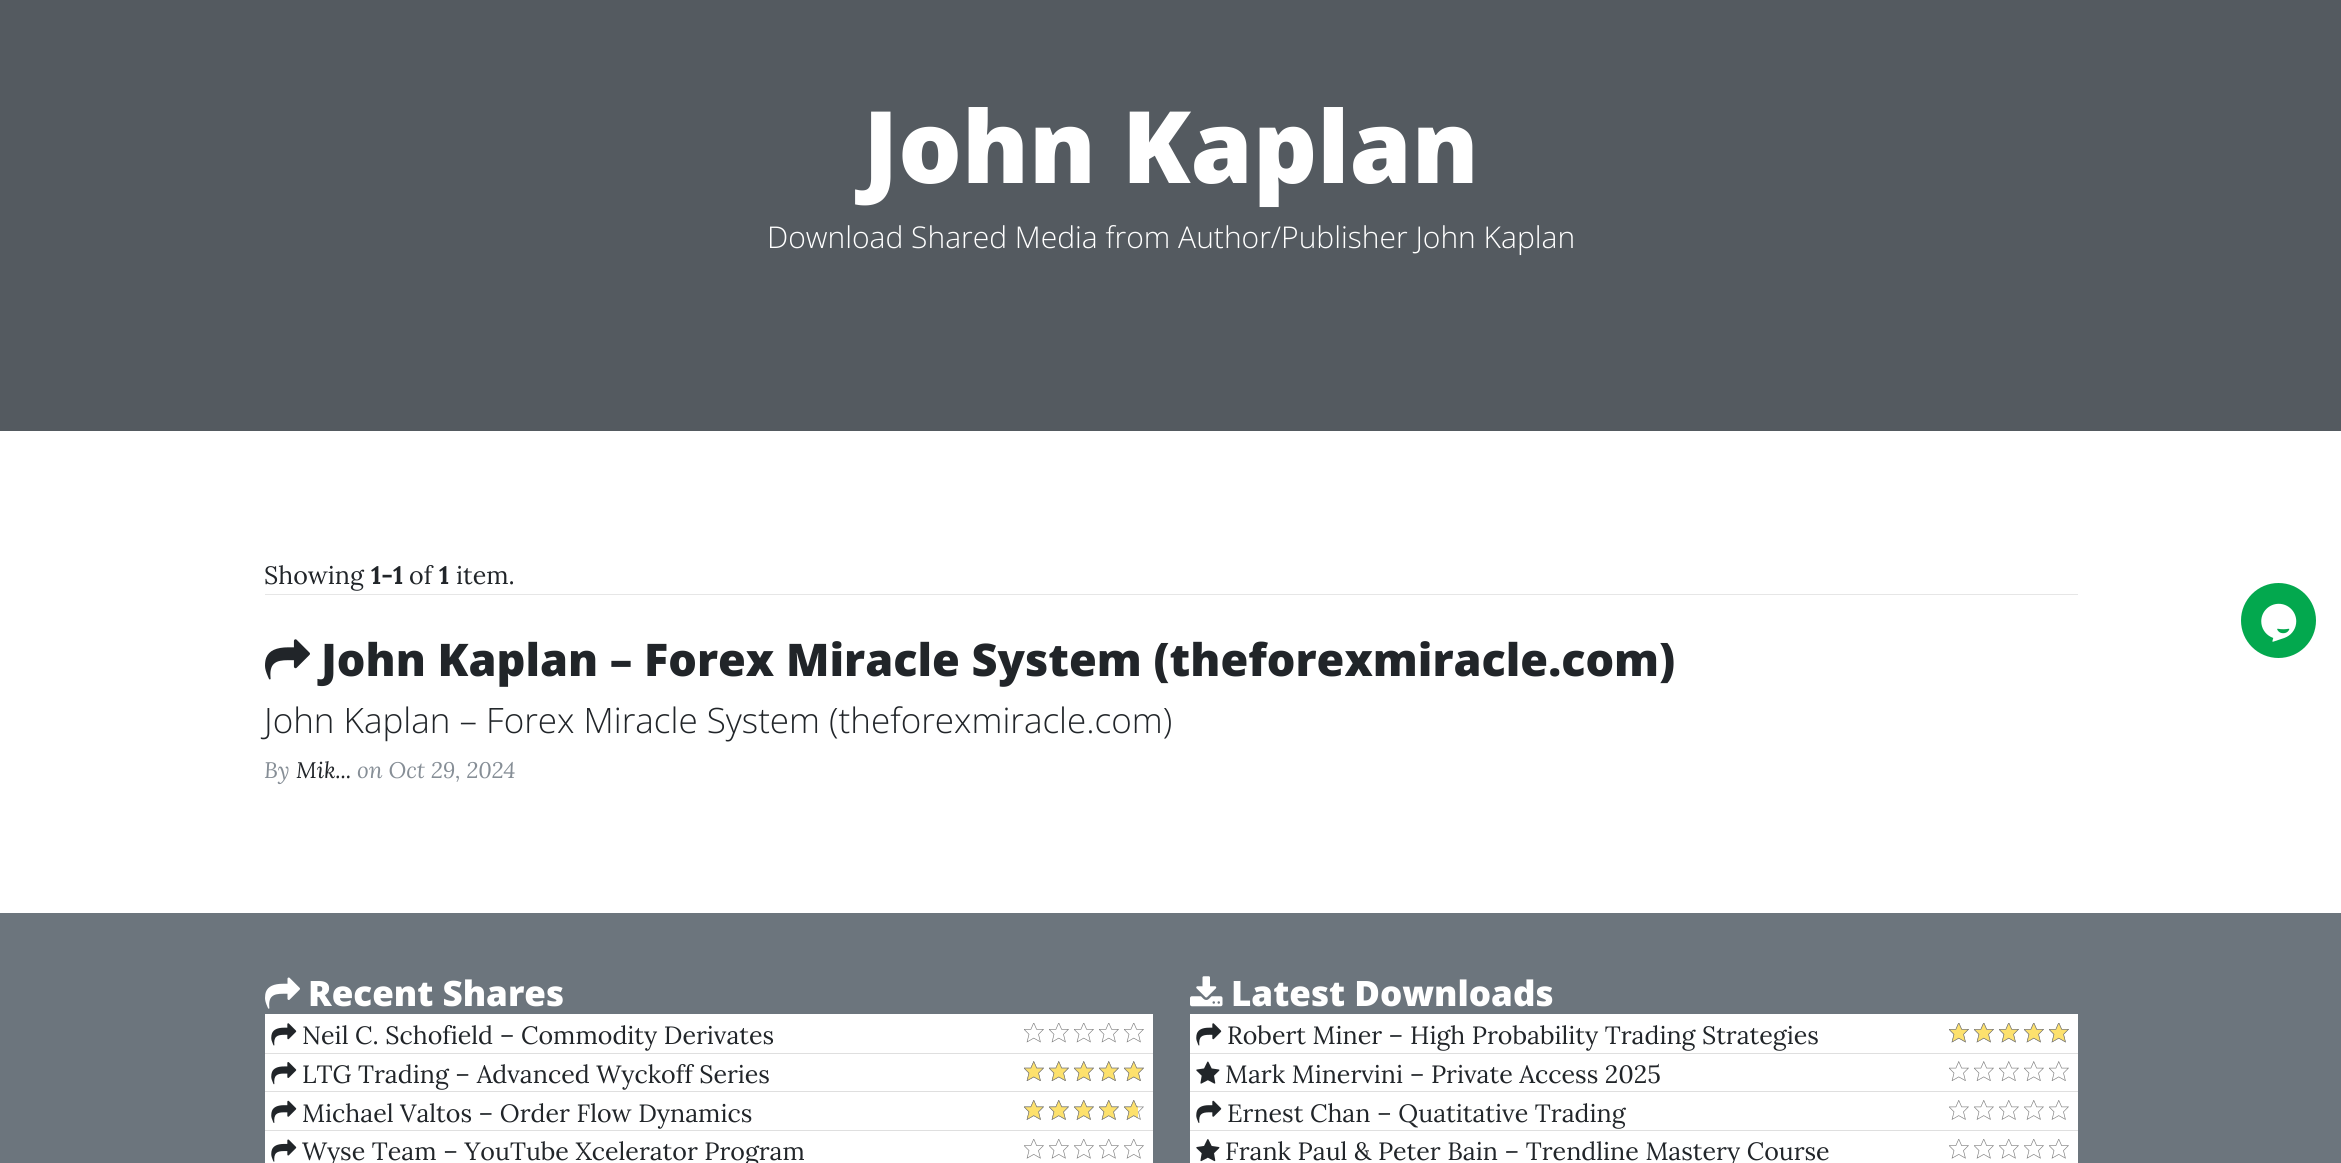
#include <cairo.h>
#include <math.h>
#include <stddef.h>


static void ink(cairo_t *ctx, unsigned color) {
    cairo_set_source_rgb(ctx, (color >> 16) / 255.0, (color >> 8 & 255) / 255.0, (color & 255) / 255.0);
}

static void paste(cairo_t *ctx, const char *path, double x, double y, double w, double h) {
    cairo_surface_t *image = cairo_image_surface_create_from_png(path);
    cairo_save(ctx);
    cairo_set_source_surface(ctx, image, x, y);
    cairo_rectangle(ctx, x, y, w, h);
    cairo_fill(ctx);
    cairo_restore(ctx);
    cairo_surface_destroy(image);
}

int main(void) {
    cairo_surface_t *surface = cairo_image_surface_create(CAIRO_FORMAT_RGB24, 2341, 1163);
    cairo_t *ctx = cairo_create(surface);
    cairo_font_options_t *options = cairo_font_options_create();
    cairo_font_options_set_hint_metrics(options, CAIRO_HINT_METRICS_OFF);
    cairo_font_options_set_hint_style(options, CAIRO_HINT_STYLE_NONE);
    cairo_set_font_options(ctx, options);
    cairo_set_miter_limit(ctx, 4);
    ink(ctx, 0xFFFFFF);
    cairo_paint(ctx);
    ink(ctx, 0x545A60);
    cairo_rectangle(ctx, 0, 0, 2341, 431);
    cairo_fill(ctx);
    cairo_select_font_face(ctx, "Open Sans ExtraBold", CAIRO_FONT_SLANT_NORMAL, CAIRO_FONT_WEIGHT_NORMAL);
    cairo_set_font_size(ctx, 100);
    ink(ctx, 0xFFFFFF);
    cairo_move_to(ctx, 863, 183);
    cairo_show_text(ctx, "John Kaplan");
    cairo_select_font_face(ctx, "Open Sans Light", CAIRO_FONT_SLANT_NORMAL, CAIRO_FONT_WEIGHT_NORMAL);
    cairo_set_font_size(ctx, 30);
    cairo_move_to(ctx, 767, 248);
    cairo_show_text(ctx, "Download Shared Media from Author/Publisher John Kaplan");
    cairo_select_font_face(ctx, "Lora", CAIRO_FONT_SLANT_NORMAL, CAIRO_FONT_WEIGHT_NORMAL);
    cairo_set_font_size(ctx, 25);
    ink(ctx, 0x212529);
    cairo_move_to(ctx, 264, 584);
    cairo_show_text(ctx, "Showing");
    cairo_select_font_face(ctx, "Lora", CAIRO_FONT_SLANT_NORMAL, CAIRO_FONT_WEIGHT_BOLD);
    cairo_move_to(ctx, 371, 584);
    cairo_show_text(ctx, "1-1");
    cairo_select_font_face(ctx, "Lora", CAIRO_FONT_SLANT_NORMAL, CAIRO_FONT_WEIGHT_NORMAL);
    cairo_move_to(ctx, 409, 584);
    cairo_show_text(ctx, "of");
    cairo_select_font_face(ctx, "Lora", CAIRO_FONT_SLANT_NORMAL, CAIRO_FONT_WEIGHT_BOLD);
    cairo_move_to(ctx, 439, 584);
    cairo_show_text(ctx, "1");
    cairo_select_font_face(ctx, "Lora", CAIRO_FONT_SLANT_NORMAL, CAIRO_FONT_WEIGHT_NORMAL);
    cairo_move_to(ctx, 456, 584);
    cairo_show_text(ctx, "item.");
    ink(ctx, 0xE6E6E6);
    cairo_rectangle(ctx, 265, 594, 1813, 1);
    cairo_fill(ctx);
    paste(ctx, "media/1.png", 265, 639, 45, 41);
    cairo_select_font_face(ctx, "Open Sans ExtraBold", CAIRO_FONT_SLANT_NORMAL, CAIRO_FONT_WEIGHT_NORMAL);
    cairo_set_font_size(ctx, 45);
    ink(ctx, 0x212529);
    cairo_move_to(ctx, 321, 676);
    cairo_show_text(ctx, "John Kaplan – Forex Miracle System (theforexmiracle.com)");
    cairo_select_font_face(ctx, "Open Sans Light", CAIRO_FONT_SLANT_NORMAL, CAIRO_FONT_WEIGHT_NORMAL);
    cairo_set_font_size(ctx, 35);
    cairo_move_to(ctx, 264, 733);
    cairo_show_text(ctx, "John Kaplan – Forex Miracle System (theforexmiracle.com)");
    cairo_select_font_face(ctx, "Lora", CAIRO_FONT_SLANT_ITALIC, CAIRO_FONT_WEIGHT_NORMAL);
    cairo_set_font_size(ctx, 22.5);
    ink(ctx, 0x868E96);
    cairo_move_to(ctx, 264, 778);
    cairo_show_text(ctx, "By");
    ink(ctx, 0x212529);
    cairo_move_to(ctx, 296, 778);
    cairo_show_text(ctx, "Mik...");
    ink(ctx, 0x868E96);
    cairo_move_to(ctx, 357, 778);
    cairo_show_text(ctx, "on Oct 29, 2024");
    ink(ctx, 0x03A84E);
    cairo_new_path(ctx);
    cairo_arc(ctx, 2278.5, 620.5, 37.5, 0, 2 * M_PI);
    cairo_fill(ctx);
    paste(ctx, "media/2.png", 2261, 603, 36, 39);
    ink(ctx, 0x6C757D);
    cairo_rectangle(ctx, 0, 913, 2341, 250);
    cairo_fill(ctx);
    paste(ctx, "media/3.png", 265, 977, 35, 32);
    cairo_select_font_face(ctx, "Open Sans ExtraBold", CAIRO_FONT_SLANT_NORMAL, CAIRO_FONT_WEIGHT_NORMAL);
    cairo_set_font_size(ctx, 35);
    ink(ctx, 0xFFFFFF);
    cairo_move_to(ctx, 308, 1006);
    cairo_show_text(ctx, "Recent Shares");
    cairo_rectangle(ctx, 265, 1014, 888, 39);
    cairo_fill(ctx);
    paste(ctx, "media/4.png", 271, 1023, 26, 23);
    cairo_select_font_face(ctx, "Lora", CAIRO_FONT_SLANT_NORMAL, CAIRO_FONT_WEIGHT_NORMAL);
    cairo_set_font_size(ctx, 25);
    ink(ctx, 0x212529);
    cairo_move_to(ctx, 302, 1044);
    cairo_show_text(ctx, "Neil C. Schofield – Commodity Derivates");
    paste(ctx, "media/5.png", 1024, 1023, 20, 20);
    paste(ctx, "media/5.png", 1049, 1023, 20, 20);
    paste(ctx, "media/5.png", 1074, 1023, 20, 20);
    paste(ctx, "media/5.png", 1099, 1023, 20, 20);
    paste(ctx, "media/5.png", 1124, 1023, 20, 20);
    ink(ctx, 0xFFFFFF);
    cairo_rectangle(ctx, 265, 1054, 888, 37);
    cairo_fill(ctx);
    ink(ctx, 0xDFDFDF);
    cairo_rectangle(ctx, 265, 1053, 888, 1);
    cairo_fill(ctx);
    paste(ctx, "media/6.png", 271, 1062, 26, 23);
    ink(ctx, 0x212529);
    cairo_move_to(ctx, 302, 1083);
    cairo_show_text(ctx, "LTG Trading – Advanced Wyckoff Series");
    paste(ctx, "media/7.png", 1024, 1061, 20, 20);
    paste(ctx, "media/7.png", 1049, 1061, 20, 20);
    paste(ctx, "media/7.png", 1074, 1061, 20, 20);
    paste(ctx, "media/7.png", 1099, 1061, 20, 20);
    paste(ctx, "media/7.png", 1124, 1061, 20, 20);
    paste(ctx, "media/8.png", 1024, 1061, 20, 20);
    paste(ctx, "media/8.png", 1049, 1061, 20, 20);
    paste(ctx, "media/8.png", 1074, 1061, 20, 20);
    paste(ctx, "media/8.png", 1099, 1061, 20, 20);
    paste(ctx, "media/8.png", 1124, 1061, 20, 20);
    ink(ctx, 0xFFFFFF);
    cairo_rectangle(ctx, 265, 1092, 888, 38);
    cairo_fill(ctx);
    ink(ctx, 0xDFDFDF);
    cairo_rectangle(ctx, 265, 1091, 888, 1);
    cairo_fill(ctx);
    paste(ctx, "media/9.png", 271, 1100, 26, 23);
    ink(ctx, 0x212529);
    cairo_move_to(ctx, 302, 1122);
    cairo_show_text(ctx, "Michael Valtos – Order Flow Dynamics");
    paste(ctx, "media/10.png", 1024, 1100, 20, 20);
    paste(ctx, "media/10.png", 1049, 1100, 20, 20);
    paste(ctx, "media/10.png", 1074, 1100, 20, 20);
    paste(ctx, "media/10.png", 1099, 1100, 20, 20);
    paste(ctx, "media/10.png", 1124, 1100, 20, 20);
    paste(ctx, "media/11.png", 1024, 1100, 20, 20);
    paste(ctx, "media/11.png", 1049, 1100, 20, 20);
    paste(ctx, "media/11.png", 1074, 1100, 20, 20);
    paste(ctx, "media/11.png", 1099, 1100, 20, 20);
    paste(ctx, "media/12.png", 1124, 1100, 14, 20);
    ink(ctx, 0xFFFFFF);
    cairo_rectangle(ctx, 265, 1131, 888, 32);
    cairo_fill(ctx);
    ink(ctx, 0xDFDFDF);
    cairo_rectangle(ctx, 265, 1130, 888, 1);
    cairo_fill(ctx);
    paste(ctx, "media/13.png", 271, 1139, 26, 23);
    ink(ctx, 0x212529);
    cairo_move_to(ctx, 302, 1160);
    cairo_show_text(ctx, "Wyse Team – YouTube Xcelerator Program");
    paste(ctx, "media/14.png", 1024, 1139, 20, 20);
    paste(ctx, "media/14.png", 1049, 1139, 20, 20);
    paste(ctx, "media/14.png", 1074, 1139, 20, 20);
    paste(ctx, "media/14.png", 1099, 1139, 20, 20);
    paste(ctx, "media/14.png", 1124, 1139, 20, 20);
    paste(ctx, "media/15.png", 1190, 976, 33, 31);
    cairo_select_font_face(ctx, "Open Sans ExtraBold", CAIRO_FONT_SLANT_NORMAL, CAIRO_FONT_WEIGHT_NORMAL);
    cairo_set_font_size(ctx, 35);
    ink(ctx, 0xFFFFFF);
    cairo_move_to(ctx, 1231, 1006);
    cairo_show_text(ctx, "Latest Downloads");
    cairo_rectangle(ctx, 1190, 1014, 888, 39);
    cairo_fill(ctx);
    paste(ctx, "media/4.png", 1196, 1023, 26, 23);
    cairo_select_font_face(ctx, "Lora", CAIRO_FONT_SLANT_NORMAL, CAIRO_FONT_WEIGHT_NORMAL);
    cairo_set_font_size(ctx, 25);
    ink(ctx, 0x212529);
    cairo_move_to(ctx, 1227, 1044);
    cairo_show_text(ctx, "Robert Miner – High Probability Trading Strategies");
    paste(ctx, "media/5.png", 1949, 1023, 20, 20);
    paste(ctx, "media/5.png", 1974, 1023, 20, 20);
    paste(ctx, "media/5.png", 1999, 1023, 20, 20);
    paste(ctx, "media/5.png", 2024, 1023, 20, 20);
    paste(ctx, "media/5.png", 2049, 1023, 20, 20);
    paste(ctx, "media/16.png", 1949, 1023, 20, 20);
    paste(ctx, "media/16.png", 1974, 1023, 20, 20);
    paste(ctx, "media/16.png", 1999, 1023, 20, 20);
    paste(ctx, "media/16.png", 2024, 1023, 20, 20);
    paste(ctx, "media/16.png", 2049, 1023, 20, 20);
    ink(ctx, 0xFFFFFF);
    cairo_rectangle(ctx, 1190, 1054, 888, 37);
    cairo_fill(ctx);
    ink(ctx, 0xDFDFDF);
    cairo_rectangle(ctx, 1190, 1053, 888, 1);
    cairo_fill(ctx);
    paste(ctx, "media/17.png", 1196, 1061, 24, 23);
    ink(ctx, 0x212529);
    cairo_move_to(ctx, 1225, 1083);
    cairo_show_text(ctx, "Mark Minervini – Private Access 2025");
    paste(ctx, "media/7.png", 1949, 1061, 20, 20);
    paste(ctx, "media/7.png", 1974, 1061, 20, 20);
    paste(ctx, "media/7.png", 1999, 1061, 20, 20);
    paste(ctx, "media/7.png", 2024, 1061, 20, 20);
    paste(ctx, "media/7.png", 2049, 1061, 20, 20);
    ink(ctx, 0xFFFFFF);
    cairo_rectangle(ctx, 1190, 1092, 888, 38);
    cairo_fill(ctx);
    ink(ctx, 0xDFDFDF);
    cairo_rectangle(ctx, 1190, 1091, 888, 1);
    cairo_fill(ctx);
    paste(ctx, "media/9.png", 1196, 1100, 26, 23);
    ink(ctx, 0x212529);
    cairo_move_to(ctx, 1227, 1122);
    cairo_show_text(ctx, "Ernest Chan – Quatitative Trading");
    paste(ctx, "media/10.png", 1949, 1100, 20, 20);
    paste(ctx, "media/10.png", 1974, 1100, 20, 20);
    paste(ctx, "media/10.png", 1999, 1100, 20, 20);
    paste(ctx, "media/10.png", 2024, 1100, 20, 20);
    paste(ctx, "media/10.png", 2049, 1100, 20, 20);
    ink(ctx, 0xFFFFFF);
    cairo_rectangle(ctx, 1190, 1131, 888, 32);
    cairo_fill(ctx);
    ink(ctx, 0xDFDFDF);
    cairo_rectangle(ctx, 1190, 1130, 888, 1);
    cairo_fill(ctx);
    paste(ctx, "media/18.png", 1196, 1139, 24, 23);
    ink(ctx, 0x212529);
    cairo_move_to(ctx, 1225, 1160);
    cairo_show_text(ctx, "Frank Paul & Peter Bain – Trendline Mastery Course");
    paste(ctx, "media/14.png", 1949, 1139, 20, 20);
    paste(ctx, "media/14.png", 1974, 1139, 20, 20);
    paste(ctx, "media/14.png", 1999, 1139, 20, 20);
    paste(ctx, "media/14.png", 2024, 1139, 20, 20);
    paste(ctx, "media/14.png", 2049, 1139, 20, 20);
    cairo_surface_write_to_png(surface, "image.png");
    cairo_font_options_destroy(options);
    cairo_destroy(ctx);
    cairo_surface_destroy(surface);
    return 0;
}
